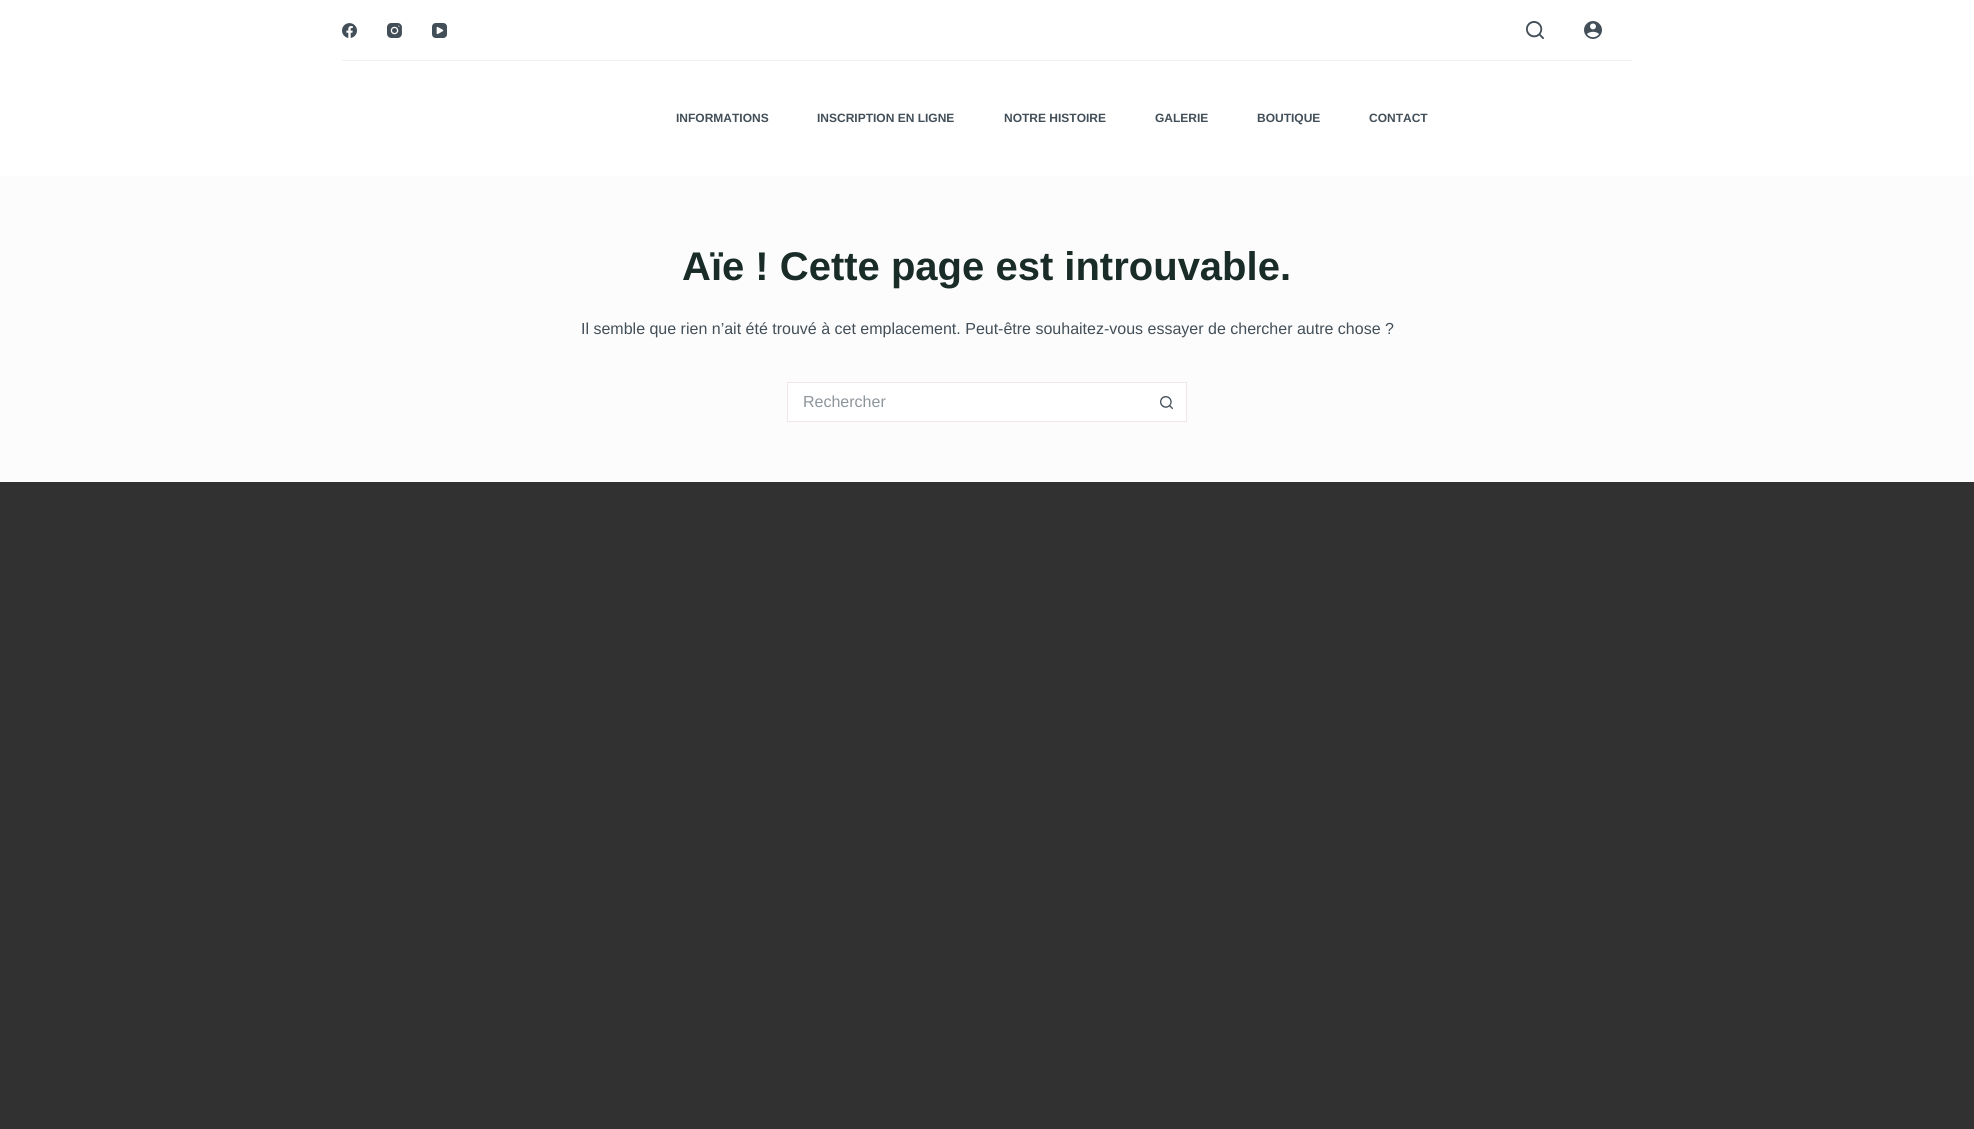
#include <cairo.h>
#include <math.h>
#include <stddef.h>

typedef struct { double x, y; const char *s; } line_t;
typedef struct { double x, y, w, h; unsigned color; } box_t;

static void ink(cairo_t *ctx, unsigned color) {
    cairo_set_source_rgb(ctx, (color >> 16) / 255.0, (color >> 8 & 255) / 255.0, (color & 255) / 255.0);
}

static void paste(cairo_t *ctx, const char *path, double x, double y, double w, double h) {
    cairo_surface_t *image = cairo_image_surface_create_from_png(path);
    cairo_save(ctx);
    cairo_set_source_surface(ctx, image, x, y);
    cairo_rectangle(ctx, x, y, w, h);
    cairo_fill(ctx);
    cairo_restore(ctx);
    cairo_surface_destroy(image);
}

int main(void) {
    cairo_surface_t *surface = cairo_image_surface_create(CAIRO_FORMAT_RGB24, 1974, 1129);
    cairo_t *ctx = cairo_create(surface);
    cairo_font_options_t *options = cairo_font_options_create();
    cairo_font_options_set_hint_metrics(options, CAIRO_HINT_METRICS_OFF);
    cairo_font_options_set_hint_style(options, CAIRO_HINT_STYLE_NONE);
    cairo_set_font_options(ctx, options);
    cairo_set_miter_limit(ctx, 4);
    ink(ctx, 0xFCFCFC);
    cairo_paint(ctx);
    ink(ctx, 0xFFFFFF);
    cairo_rectangle(ctx, 0, 0, 1974, 176);
    cairo_fill(ctx);
    paste(ctx, "media/1.png", 342, 23, 15, 15);
    paste(ctx, "media/2.png", 387, 23, 15, 15);
    paste(ctx, "media/3.png", 432, 23, 15, 15);
    paste(ctx, "media/4.png", 1526, 21, 18, 18);
    paste(ctx, "media/5.png", 1584, 21, 18, 18);
    ink(ctx, 0xF0F1F3);
    cairo_rectangle(ctx, 342, 60, 1290, 1);
    cairo_fill(ctx);
    cairo_select_font_face(ctx, "Liberation Sans", CAIRO_FONT_SLANT_NORMAL, CAIRO_FONT_WEIGHT_BOLD);
    cairo_set_font_size(ctx, 12);
    ink(ctx, 0x434F58);
    {
        static const line_t items[] = {
            {676, 122, "INFORMATIONS"},
            {817, 122, "INSCRIPTION EN LIGNE"},
            {1004, 122, "NOTRE HISTOIRE"},
            {1155, 122, "GALERIE"},
            {1257, 122, "BOUTIQUE"},
            {1369, 122, "CONTACT"},
        };
        for (size_t i = 0; i < sizeof items / sizeof *items; i++) {
            cairo_move_to(ctx, items[i].x, items[i].y);
            cairo_show_text(ctx, items[i].s);
        }
    }
    cairo_set_font_size(ctx, 40);
    ink(ctx, 0x192C27);
    cairo_move_to(ctx, 682, 280);
    cairo_show_text(ctx, "Aïe ! Cette page est introuvable.");
    cairo_select_font_face(ctx, "Liberation Sans", CAIRO_FONT_SLANT_NORMAL, CAIRO_FONT_WEIGHT_NORMAL);
    cairo_set_font_size(ctx, 16);
    ink(ctx, 0x434F58);
    cairo_move_to(ctx, 581, 334);
    cairo_show_text(ctx, "Il semble que rien n’ait été trouvé à cet emplacement. Peut-être souhaitez-vous essayer de chercher autre chose ?");
    {
        static const box_t items[] = {
            {788, 383, 398, 38, 0xFFFFFF},
            {787, 382, 400, 1, 0xF0E6E6},
            {787, 421, 360, 1, 0xF0E6E6},
            {787, 382, 1, 40, 0xF0E6E6},
        };
        for (size_t i = 0; i < sizeof items / sizeof *items; i++) {
            ink(ctx, items[i].color);
            cairo_rectangle(ctx, items[i].x, items[i].y, items[i].w, items[i].h);
            cairo_fill(ctx);
        }
    }
    ink(ctx, 0x8E959B);
    cairo_move_to(ctx, 803, 407);
    cairo_show_text(ctx, "Rechercher");
    ink(ctx, 0xF0E6E6);
    cairo_rectangle(ctx, 1186, 382, 1, 40);
    cairo_fill(ctx);
    cairo_rectangle(ctx, 1147, 421, 40, 1);
    cairo_fill(ctx);
    paste(ctx, "media/6.png", 1160, 396, 13, 13);
    ink(ctx, 0x313131);
    cairo_rectangle(ctx, 0, 482, 1974, 647);
    cairo_fill(ctx);
    cairo_surface_write_to_png(surface, "image.png");
    cairo_font_options_destroy(options);
    cairo_destroy(ctx);
    cairo_surface_destroy(surface);
    return 0;
}
